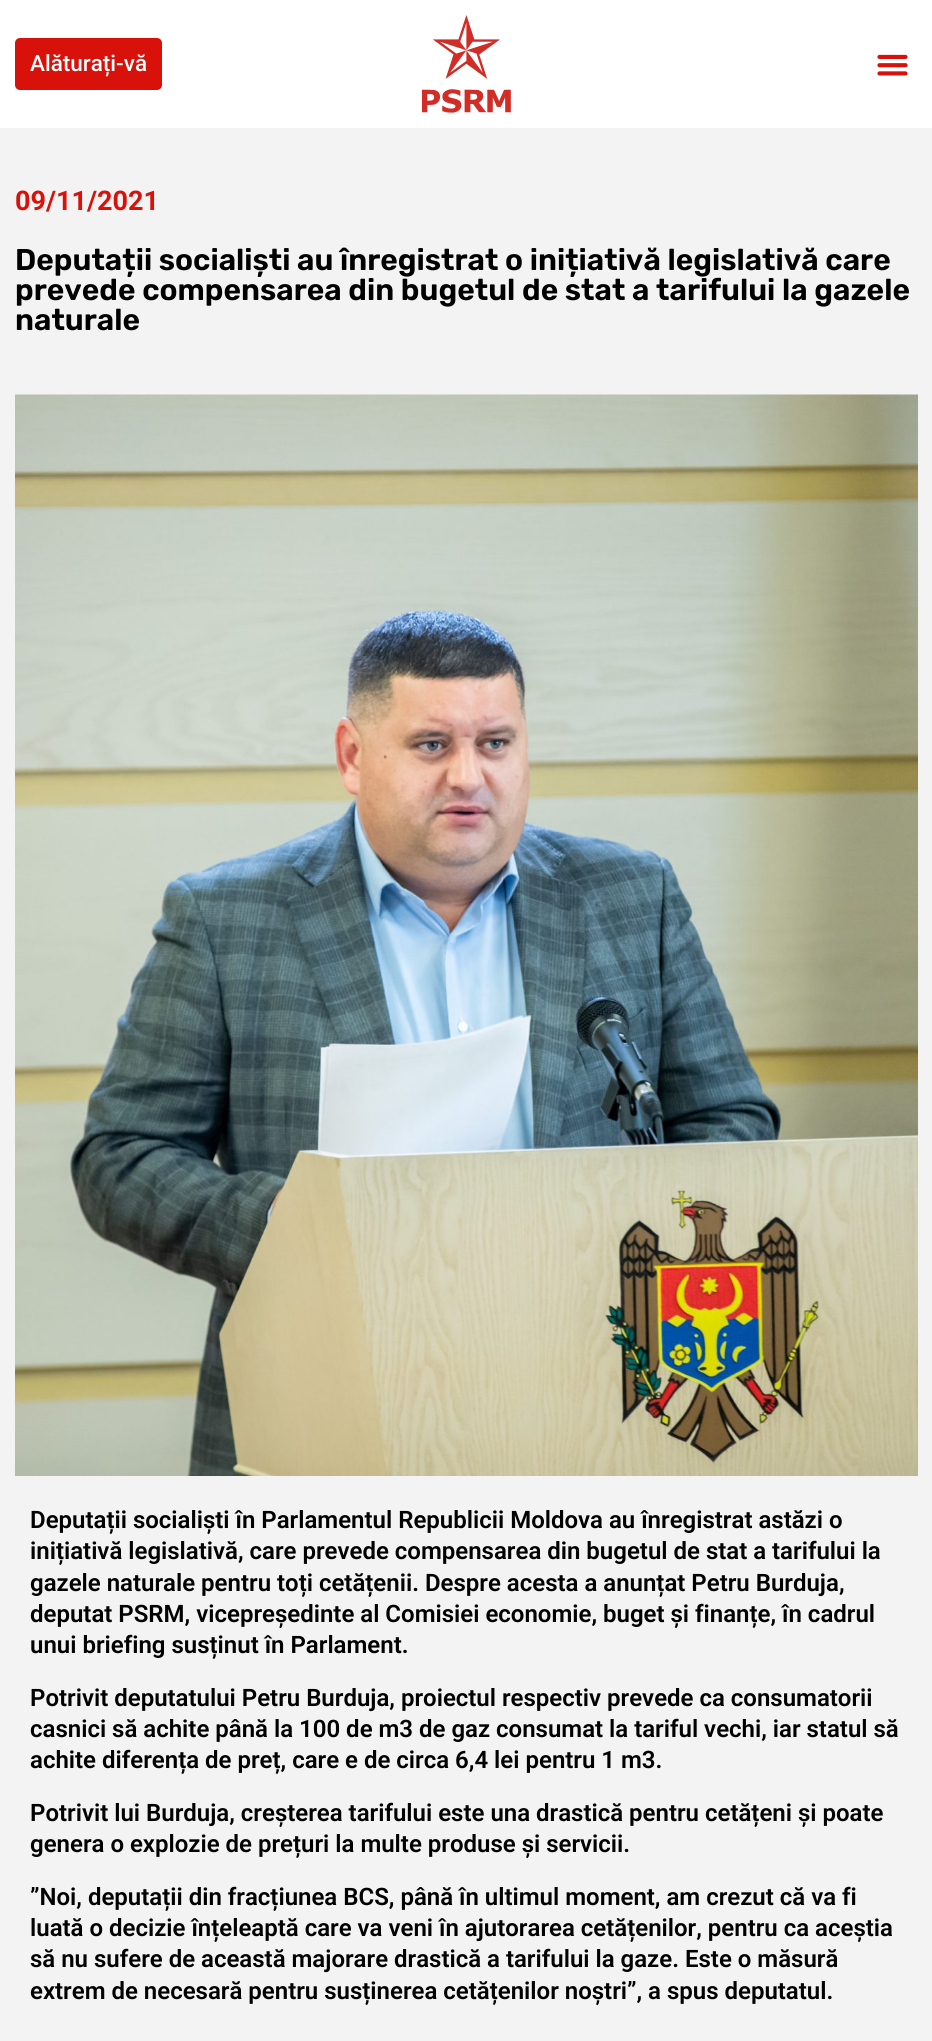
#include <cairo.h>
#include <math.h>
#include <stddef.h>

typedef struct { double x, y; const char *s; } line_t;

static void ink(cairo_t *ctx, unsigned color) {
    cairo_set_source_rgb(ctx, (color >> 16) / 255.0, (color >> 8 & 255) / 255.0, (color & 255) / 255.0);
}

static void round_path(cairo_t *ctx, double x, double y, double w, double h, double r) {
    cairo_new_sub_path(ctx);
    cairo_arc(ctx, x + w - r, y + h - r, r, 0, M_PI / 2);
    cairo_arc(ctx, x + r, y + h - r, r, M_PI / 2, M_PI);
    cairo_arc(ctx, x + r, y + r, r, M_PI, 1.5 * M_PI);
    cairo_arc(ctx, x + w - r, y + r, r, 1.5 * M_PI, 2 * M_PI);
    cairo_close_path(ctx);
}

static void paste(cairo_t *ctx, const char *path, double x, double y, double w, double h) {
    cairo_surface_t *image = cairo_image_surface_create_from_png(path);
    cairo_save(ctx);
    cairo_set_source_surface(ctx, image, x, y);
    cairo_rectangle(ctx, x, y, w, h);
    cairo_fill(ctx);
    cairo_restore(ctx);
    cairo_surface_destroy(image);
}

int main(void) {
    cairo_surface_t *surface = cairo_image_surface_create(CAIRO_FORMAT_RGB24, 932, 2041);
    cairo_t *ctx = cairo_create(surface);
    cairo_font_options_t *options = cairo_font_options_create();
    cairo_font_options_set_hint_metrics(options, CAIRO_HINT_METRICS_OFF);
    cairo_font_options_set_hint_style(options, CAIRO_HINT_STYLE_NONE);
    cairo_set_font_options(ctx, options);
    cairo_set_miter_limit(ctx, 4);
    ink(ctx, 0xFFFFFF);
    cairo_paint(ctx);
    ink(ctx, 0xD8120A);
    round_path(ctx, 15, 38, 147, 52, 5);
    cairo_fill(ctx);
    cairo_select_font_face(ctx, "Roboto Medium", CAIRO_FONT_SLANT_NORMAL, CAIRO_FONT_WEIGHT_NORMAL);
    cairo_set_font_size(ctx, 22.5);
    ink(ctx, 0xFFFFFF);
    cairo_move_to(ctx, 30, 71);
    cairo_show_text(ctx, "Alăturați-vă");
    paste(ctx, "media/1.png", 422, 15, 89, 98);
    paste(ctx, "media/2.png", 877, 54, 31, 22);
    ink(ctx, 0xF3F3F3);
    cairo_rectangle(ctx, 0, 128, 932, 1913);
    cairo_fill(ctx);
    cairo_select_font_face(ctx, "Roboto", CAIRO_FONT_SLANT_NORMAL, CAIRO_FONT_WEIGHT_BOLD);
    cairo_set_font_size(ctx, 27);
    ink(ctx, 0xD8120A);
    cairo_move_to(ctx, 15, 210);
    cairo_show_text(ctx, "09/11/2021");
    cairo_select_font_face(ctx, "Rubik SemiBold", CAIRO_FONT_SLANT_NORMAL, CAIRO_FONT_WEIGHT_NORMAL);
    cairo_set_font_size(ctx, 30);
    ink(ctx, 0x000000);
    {
        static const line_t items[] = {
            {15, 270, "Deputații socialiști au înregistrat o inițiativă legislativă care"},
            {15, 300, "prevede compensarea din bugetul de stat a tarifului la gazele"},
            {15, 330, "naturale"},
        };
        for (size_t i = 0; i < sizeof items / sizeof *items; i++) {
            cairo_move_to(ctx, items[i].x, items[i].y);
            cairo_show_text(ctx, items[i].s);
        }
    }
    paste(ctx, "media/3.png", 15, 394, 903, 1082);
    cairo_select_font_face(ctx, "Roboto SemiBold", CAIRO_FONT_SLANT_NORMAL, CAIRO_FONT_WEIGHT_NORMAL);
    cairo_set_font_size(ctx, 24);
    {
        static const line_t items[] = {
            {30, 1528, "Deputații socialiști în Parlamentul Republicii Moldova au înregistrat astăzi o"},
            {30, 1559, "inițiativă legislativă, care prevede compensarea din bugetul de stat a tarifului la"},
            {30, 1591, "gazele naturale pentru toți cetățenii. Despre acesta a anunțat Petru Burduja,"},
            {30, 1622, "deputat PSRM, vicepreședinte al Comisiei economie, buget și finanțe, în cadrul"},
            {30, 1653, "unui briefing susținut în Parlament."},
            {30, 1706, "Potrivit deputatului Petru Burduja, proiectul respectiv prevede ca consumatorii"},
            {30, 1737, "casnici să achite până la 100 de m3 de gaz consumat la tariful vechi, iar statul să"},
            {30, 1768, "achite diferența de preț, care e de circa 6,4 lei pentru 1 m3."},
            {30, 1821, "Potrivit lui Burduja, creșterea tarifului este una drastică pentru cetățeni și poate"},
            {30, 1852, "genera o explozie de prețuri la multe produse și servicii."},
            {30, 1905, "”Noi, deputații din fracțiunea BCS, până în ultimul moment, am crezut că va fi"},
            {30, 1936, "luată o decizie înțeleaptă care va veni în ajutorarea cetățenilor, pentru ca aceștia"},
            {30, 1967, "să nu sufere de această majorare drastică a tarifului la gaze. Este o măsură"},
            {30, 1999, "extrem de necesară pentru susținerea cetățenilor noștri”, a spus deputatul."},
        };
        for (size_t i = 0; i < sizeof items / sizeof *items; i++) {
            cairo_move_to(ctx, items[i].x, items[i].y);
            cairo_show_text(ctx, items[i].s);
        }
    }
    cairo_surface_write_to_png(surface, "image.png");
    cairo_font_options_destroy(options);
    cairo_destroy(ctx);
    cairo_surface_destroy(surface);
    return 0;
}
